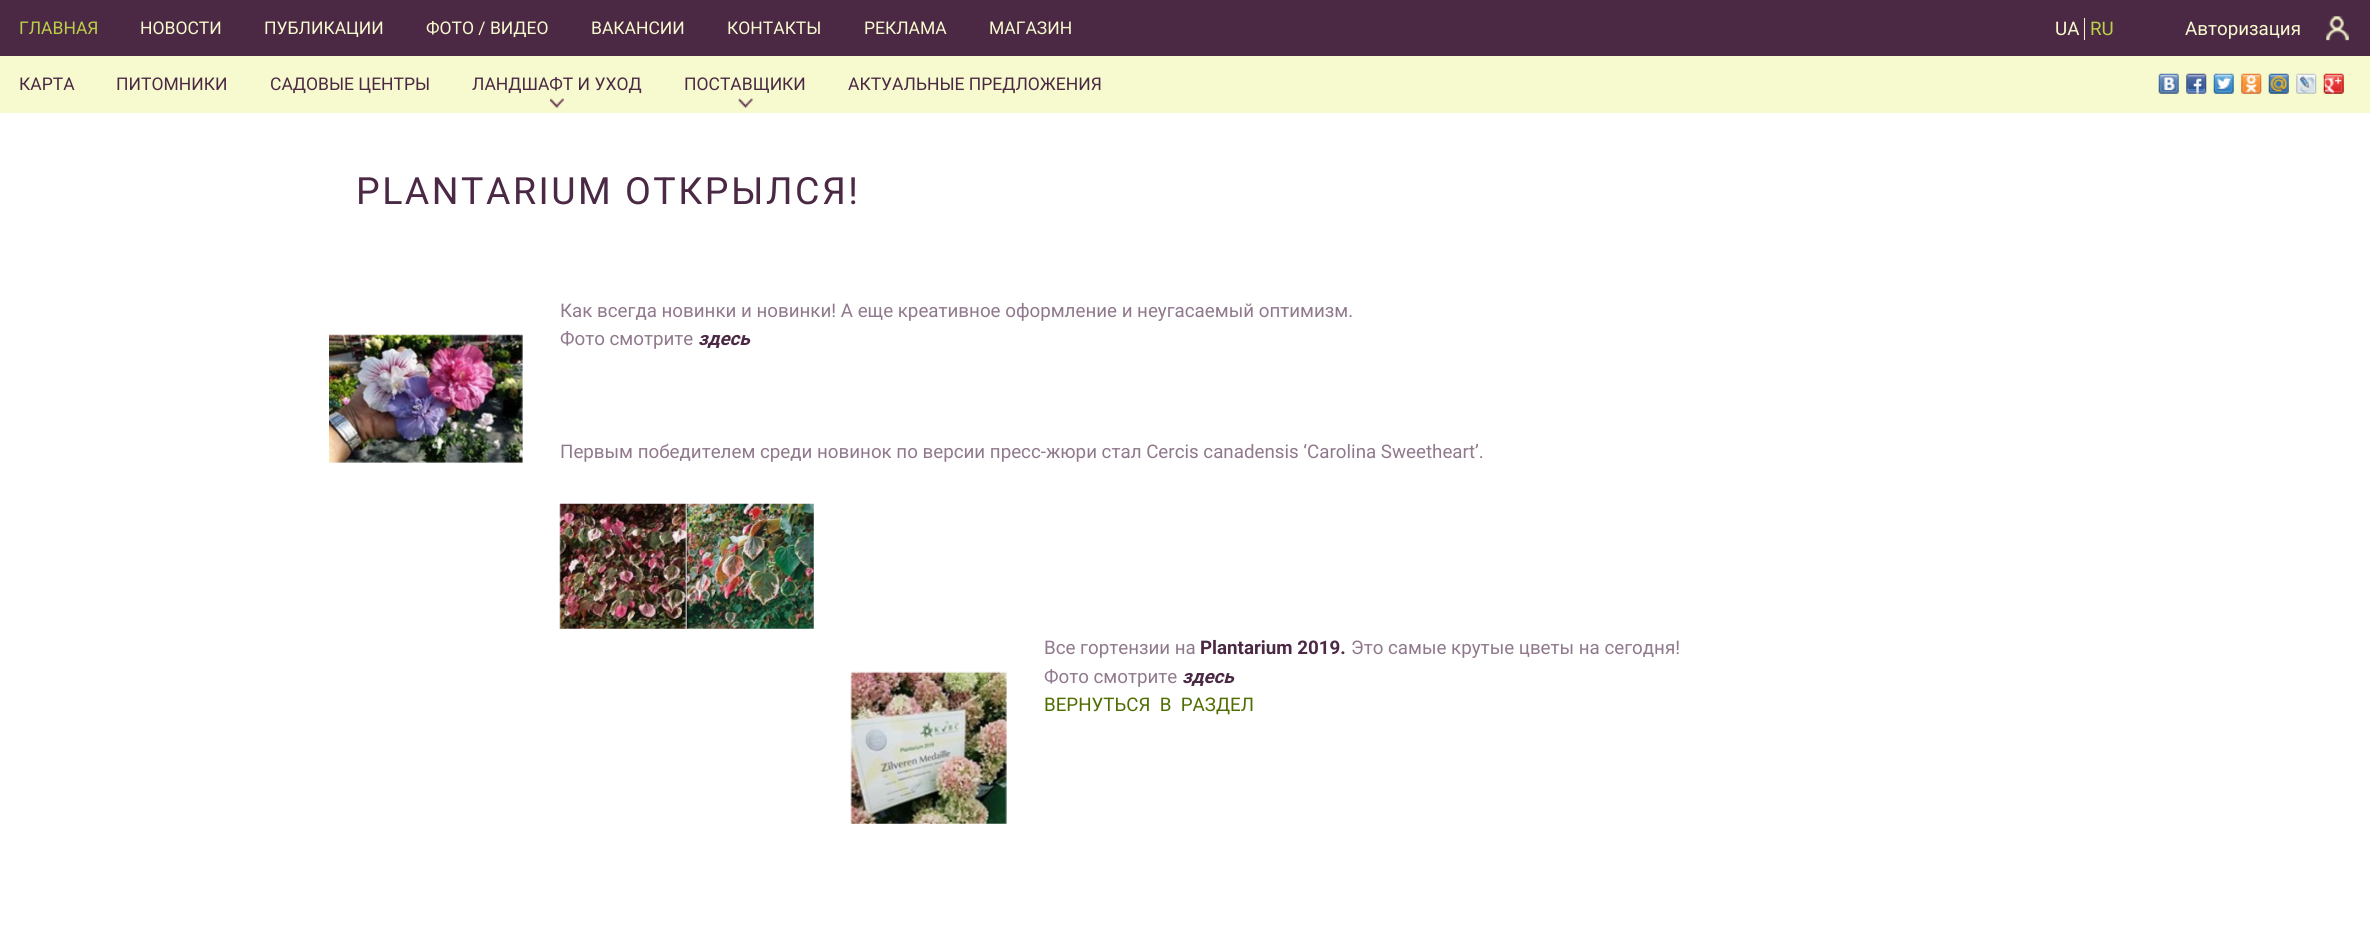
#include <cairo.h>
#include <math.h>
#include <stddef.h>

typedef struct { double x, y; const char *s; } line_t;

static void ink(cairo_t *ctx, unsigned color) {
    cairo_set_source_rgb(ctx, (color >> 16) / 255.0, (color >> 8 & 255) / 255.0, (color & 255) / 255.0);
}

static void write_spaced(cairo_t *ctx, double x, double y, const char *s, double letter, double word) {
    cairo_move_to(ctx, x, y);
    while (*s) {
        char ch[5] = {0};
        int n = 0;
        do ch[n++] = *s++; while ((*s & 0xC0) == 0x80);
        cairo_show_text(ctx, ch);
        cairo_rel_move_to(ctx, letter + word * (*ch == ' '), 0);
    }
}

static void paste(cairo_t *ctx, const char *path, double x, double y, double w, double h) {
    cairo_surface_t *image = cairo_image_surface_create_from_png(path);
    cairo_save(ctx);
    cairo_set_source_surface(ctx, image, x, y);
    cairo_rectangle(ctx, x, y, w, h);
    cairo_fill(ctx);
    cairo_restore(ctx);
    cairo_surface_destroy(image);
}

int main(void) {
    cairo_surface_t *surface = cairo_image_surface_create(CAIRO_FORMAT_RGB24, 2370, 943);
    cairo_t *ctx = cairo_create(surface);
    cairo_font_options_t *options = cairo_font_options_create();
    cairo_font_options_set_hint_metrics(options, CAIRO_HINT_METRICS_OFF);
    cairo_font_options_set_hint_style(options, CAIRO_HINT_STYLE_NONE);
    cairo_set_font_options(ctx, options);
    cairo_set_miter_limit(ctx, 4);
    ink(ctx, 0xFFFFFF);
    cairo_paint(ctx);
    ink(ctx, 0x4B2944);
    cairo_rectangle(ctx, 0, 0, 2370, 56);
    cairo_fill(ctx);
    cairo_select_font_face(ctx, "Roboto", CAIRO_FONT_SLANT_NORMAL, CAIRO_FONT_WEIGHT_NORMAL);
    cairo_set_font_size(ctx, 17.5);
    ink(ctx, 0xBAD049);
    cairo_move_to(ctx, 19, 34);
    cairo_show_text(ctx, "ГЛАВНАЯ");
    ink(ctx, 0xF7F9CE);
    {
        static const line_t items[] = {
            {140, 34, "НОВОСТИ"},
            {264, 34, "ПУБЛИКАЦИИ"},
            {426, 34, "ФОТО / ВИДЕО"},
            {591, 34, "ВАКАНСИИ"},
            {727, 34, "КОНТАКТЫ"},
            {864, 34, "РЕКЛАМА"},
            {989, 34, "МАГАЗИН"},
        };
        for (size_t i = 0; i < sizeof items / sizeof *items; i++) {
            cairo_move_to(ctx, items[i].x, items[i].y);
            cairo_show_text(ctx, items[i].s);
        }
    }
    cairo_rectangle(ctx, 0, 56, 2370, 57);
    cairo_fill(ctx);
    ink(ctx, 0x4B2944);
    {
        static const line_t items[] = {
            {19, 90, "КАРТА"},
            {116, 90, "ПИТОМНИКИ"},
            {270, 90, "САДОВЫЕ ЦЕНТРЫ"},
        };
        for (size_t i = 0; i < sizeof items / sizeof *items; i++) {
            cairo_move_to(ctx, items[i].x, items[i].y);
            cairo_show_text(ctx, items[i].s);
        }
    }
    paste(ctx, "media/1.png", 550, 98, 14, 10);
    cairo_move_to(ctx, 472, 90);
    cairo_show_text(ctx, "ЛАНДШАФТ И УХОД");
    paste(ctx, "media/2.png", 738, 98, 15, 10);
    cairo_move_to(ctx, 684, 90);
    cairo_show_text(ctx, "ПОСТАВЩИКИ");
    cairo_move_to(ctx, 848, 90);
    cairo_show_text(ctx, "АКТУАЛЬНЫЕ ПРЕДЛОЖЕНИЯ");
    cairo_set_font_size(ctx, 18.75);
    ink(ctx, 0xF7F9CE);
    cairo_move_to(ctx, 2055, 35);
    cairo_show_text(ctx, "UA");
    cairo_rectangle(ctx, 2084, 18, 1, 22);
    cairo_fill(ctx);
    ink(ctx, 0xBAD049);
    cairo_move_to(ctx, 2090, 35);
    cairo_show_text(ctx, "RU");
    ink(ctx, 0xF7F9CE);
    cairo_move_to(ctx, 2185, 35);
    cairo_show_text(ctx, "Авторизация");
    paste(ctx, "media/3.png", 2326, 16, 23, 25);
    paste(ctx, "media/4.png", 2158, 73, 21, 21);
    paste(ctx, "media/5.png", 2186, 73, 21, 21);
    paste(ctx, "media/6.png", 2213, 73, 21, 21);
    paste(ctx, "media/7.png", 2241, 73, 21, 21);
    paste(ctx, "media/8.png", 2268, 73, 21, 21);
    paste(ctx, "media/9.png", 2296, 73, 21, 21);
    paste(ctx, "media/10.png", 2323, 73, 21, 21);
    cairo_set_font_size(ctx, 37.5);
    ink(ctx, 0x4B2944);
    write_spaced(ctx, 356, 204, "PLANTARIUM ОТКРЫЛСЯ!", 2.5, 0);
    cairo_set_font_size(ctx, 18.75);
    ink(ctx, 0x90798D);
    cairo_move_to(ctx, 560, 317);
    cairo_show_text(ctx, "Как всегда новинки и новинки! А еще креативное оформление и неугасаемый оптимизм.");
    paste(ctx, "media/11.png", 329, 334, 194, 129);
    cairo_move_to(ctx, 560, 345);
    cairo_show_text(ctx, "Фото смотрите");
    cairo_select_font_face(ctx, "Roboto", CAIRO_FONT_SLANT_ITALIC, CAIRO_FONT_WEIGHT_BOLD);
    ink(ctx, 0x4B2944);
    cairo_move_to(ctx, 698, 345);
    cairo_show_text(ctx, "здесь");
    cairo_select_font_face(ctx, "Roboto", CAIRO_FONT_SLANT_NORMAL, CAIRO_FONT_WEIGHT_NORMAL);
    ink(ctx, 0x90798D);
    cairo_move_to(ctx, 560, 458);
    cairo_show_text(ctx, "Первым победителем среди новинок по версии пресс-жюри стал Cercis canadensis ‘Carolina Sweetheart’.");
    paste(ctx, "media/12.png", 559, 503, 255, 126);
    cairo_move_to(ctx, 1044, 654);
    cairo_show_text(ctx, "Все гортензии на");
    cairo_select_font_face(ctx, "Roboto", CAIRO_FONT_SLANT_NORMAL, CAIRO_FONT_WEIGHT_BOLD);
    ink(ctx, 0x4B2944);
    cairo_move_to(ctx, 1200, 654);
    cairo_show_text(ctx, "Plantarium 2019.");
    cairo_select_font_face(ctx, "Roboto", CAIRO_FONT_SLANT_NORMAL, CAIRO_FONT_WEIGHT_NORMAL);
    ink(ctx, 0x90798D);
    cairo_move_to(ctx, 1351, 654);
    cairo_show_text(ctx, "Это самые крутые цветы на сегодня!");
    paste(ctx, "media/13.png", 850, 671, 157, 153);
    cairo_move_to(ctx, 1044, 683);
    cairo_show_text(ctx, "Фото смотрите");
    cairo_select_font_face(ctx, "Roboto", CAIRO_FONT_SLANT_ITALIC, CAIRO_FONT_WEIGHT_BOLD);
    ink(ctx, 0x4B2944);
    cairo_move_to(ctx, 1182, 683);
    cairo_show_text(ctx, "здесь");
    cairo_select_font_face(ctx, "Roboto", CAIRO_FONT_SLANT_NORMAL, CAIRO_FONT_WEIGHT_NORMAL);
    ink(ctx, 0x506D03);
    cairo_move_to(ctx, 1044, 711);
    cairo_show_text(ctx, "ВЕРНУТЬСЯ  В  РАЗДЕЛ");
    cairo_surface_write_to_png(surface, "image.png");
    cairo_font_options_destroy(options);
    cairo_destroy(ctx);
    cairo_surface_destroy(surface);
    return 0;
}
